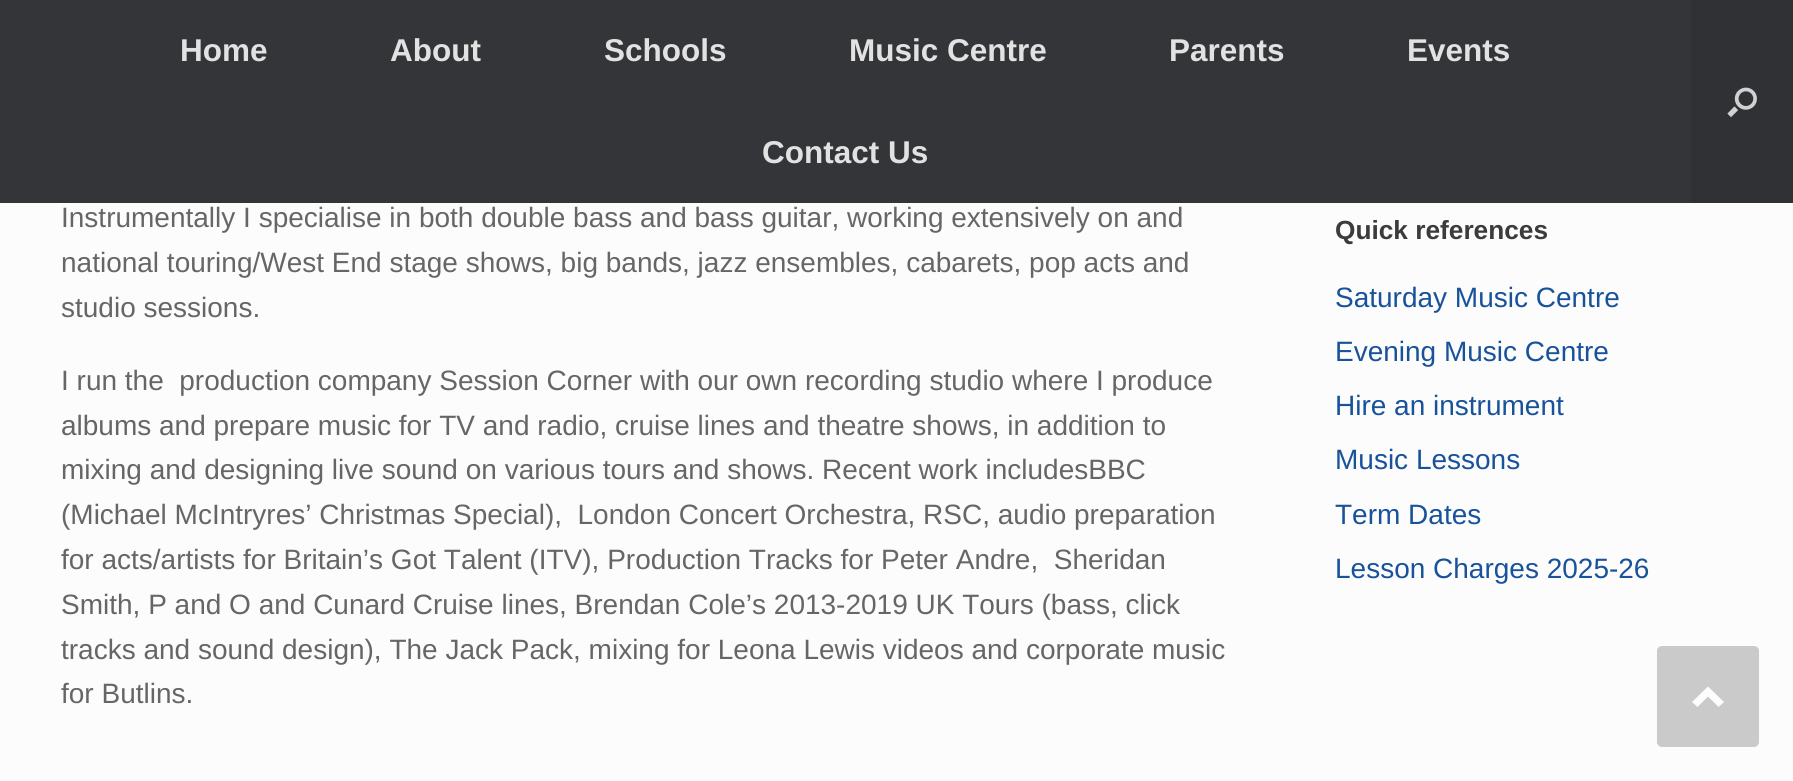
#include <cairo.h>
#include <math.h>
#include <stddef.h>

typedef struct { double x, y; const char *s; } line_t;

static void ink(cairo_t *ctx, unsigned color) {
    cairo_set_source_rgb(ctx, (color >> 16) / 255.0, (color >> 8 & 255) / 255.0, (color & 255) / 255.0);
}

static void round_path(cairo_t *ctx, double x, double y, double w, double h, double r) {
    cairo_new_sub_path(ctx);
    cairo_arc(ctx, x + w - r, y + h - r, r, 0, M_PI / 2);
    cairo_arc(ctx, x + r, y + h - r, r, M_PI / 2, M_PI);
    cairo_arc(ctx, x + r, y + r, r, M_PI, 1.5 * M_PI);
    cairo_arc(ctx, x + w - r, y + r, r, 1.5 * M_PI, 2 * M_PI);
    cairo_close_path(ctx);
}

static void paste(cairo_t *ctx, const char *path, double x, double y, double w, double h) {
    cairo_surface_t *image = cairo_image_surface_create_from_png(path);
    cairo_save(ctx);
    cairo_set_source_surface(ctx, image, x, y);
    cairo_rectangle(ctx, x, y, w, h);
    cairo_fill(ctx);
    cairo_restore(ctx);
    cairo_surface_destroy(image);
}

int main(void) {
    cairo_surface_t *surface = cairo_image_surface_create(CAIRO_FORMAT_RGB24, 1793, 781);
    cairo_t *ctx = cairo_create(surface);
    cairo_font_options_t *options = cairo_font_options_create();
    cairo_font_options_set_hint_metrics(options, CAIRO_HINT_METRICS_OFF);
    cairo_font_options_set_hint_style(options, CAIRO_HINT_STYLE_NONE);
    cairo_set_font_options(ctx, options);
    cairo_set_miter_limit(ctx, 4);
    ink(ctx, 0xFCFCFC);
    cairo_paint(ctx);
    ink(ctx, 0x343538);
    cairo_rectangle(ctx, 0, 0, 1691, 203);
    cairo_fill(ctx);
    cairo_select_font_face(ctx, "Liberation Sans", CAIRO_FONT_SLANT_NORMAL, CAIRO_FONT_WEIGHT_BOLD);
    cairo_set_font_size(ctx, 31.5);
    ink(ctx, 0xE2E2E2);
    {
        static const line_t items[] = {
            {180, 61, "Home"},
            {390, 61, "About"},
            {604, 61, "Schools"},
            {849, 61, "Music Centre"},
            {1169, 61, "Parents"},
            {1407, 61, "Events"},
            {762, 163, "Contact Us"},
        };
        for (size_t i = 0; i < sizeof items / sizeof *items; i++) {
            cairo_move_to(ctx, items[i].x, items[i].y);
            cairo_show_text(ctx, items[i].s);
        }
    }
    ink(ctx, 0x303134);
    cairo_rectangle(ctx, 1691, 0, 102, 203);
    cairo_fill(ctx);
    paste(ctx, "media/1.png", 1727, 87, 30, 31);
    cairo_select_font_face(ctx, "Liberation Sans", CAIRO_FONT_SLANT_NORMAL, CAIRO_FONT_WEIGHT_NORMAL);
    cairo_set_font_size(ctx, 28);
    ink(ctx, 0x666666);
    {
        static const line_t items[] = {
            {61, 227, "Instrumentally I specialise in both double bass and bass guitar, working extensively on and"},
            {61, 272, "national touring/West End stage shows, big bands, jazz ensembles, cabarets, pop acts and"},
            {61, 317, "studio sessions."},
            {61, 390, "I run the  production company Session Corner with our own recording studio where I produce"},
            {61, 435, "albums and prepare music for TV and radio, cruise lines and theatre shows, in addition to"},
            {61, 479, "mixing and designing live sound on various tours and shows. Recent work includesBBC"},
            {61, 524, "(Michael McIntryres’ Christmas Special),  London Concert Orchestra, RSC, audio preparation"},
            {61, 569, "for acts/artists for Britain’s Got Talent (ITV), Production Tracks for Peter Andre,  Sheridan"},
            {61, 614, "Smith, P and O and Cunard Cruise lines, Brendan Cole’s 2013-2019 UK Tours (bass, click"},
            {61, 659, "tracks and sound design), The Jack Pack, mixing for Leona Lewis videos and corporate music"},
            {61, 703, "for Butlins."},
        };
        for (size_t i = 0; i < sizeof items / sizeof *items; i++) {
            cairo_move_to(ctx, items[i].x, items[i].y);
            cairo_show_text(ctx, items[i].s);
        }
    }
    cairo_select_font_face(ctx, "Liberation Sans", CAIRO_FONT_SLANT_NORMAL, CAIRO_FONT_WEIGHT_BOLD);
    cairo_set_font_size(ctx, 26.25);
    ink(ctx, 0x3B3B3B);
    cairo_move_to(ctx, 1335, 239);
    cairo_show_text(ctx, "Quick references");
    cairo_select_font_face(ctx, "Liberation Sans", CAIRO_FONT_SLANT_NORMAL, CAIRO_FONT_WEIGHT_NORMAL);
    cairo_set_font_size(ctx, 28);
    ink(ctx, 0x17529B);
    {
        static const line_t items[] = {
            {1335, 307, "Saturday Music Centre"},
            {1335, 361, "Evening Music Centre"},
            {1335, 415, "Hire an instrument"},
            {1335, 469, "Music Lessons"},
            {1335, 524, "Term Dates"},
            {1335, 578, "Lesson Charges 2025-26"},
        };
        for (size_t i = 0; i < sizeof items / sizeof *items; i++) {
            cairo_move_to(ctx, items[i].x, items[i].y);
            cairo_show_text(ctx, items[i].s);
        }
    }
    ink(ctx, 0xCACACA);
    round_path(ctx, 1657, 646, 102, 101, 5);
    cairo_fill(ctx);
    ink(ctx, 0xFDFDFD);
    cairo_new_path(ctx);
    cairo_move_to(ctx, 1724, 702);
    cairo_line_to(ctx, 1708, 686.5);
    cairo_line_to(ctx, 1692, 702);
    cairo_line_to(ctx, 1697.5, 707);
    cairo_line_to(ctx, 1708, 696.5);
    cairo_line_to(ctx, 1718.5, 707);
    cairo_close_path(ctx);
    cairo_fill(ctx);
    cairo_surface_write_to_png(surface, "image.png");
    cairo_font_options_destroy(options);
    cairo_destroy(ctx);
    cairo_surface_destroy(surface);
    return 0;
}
